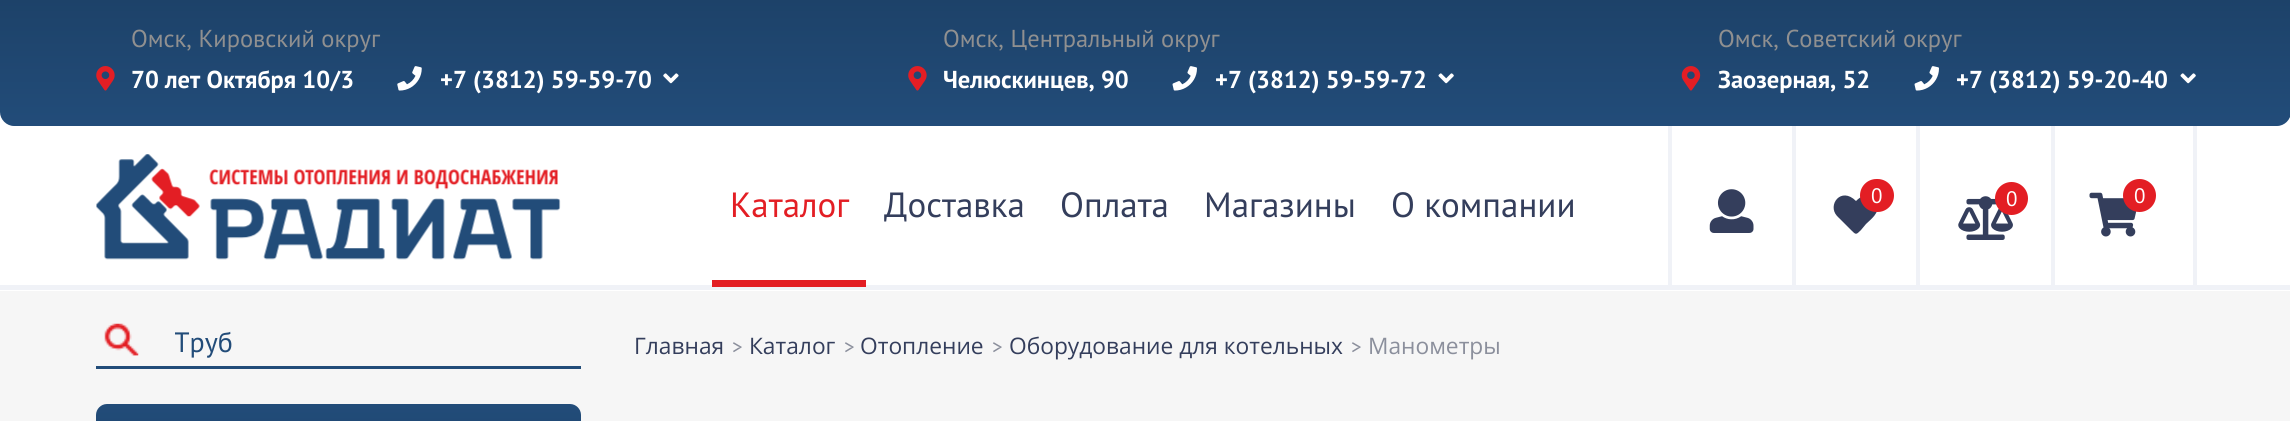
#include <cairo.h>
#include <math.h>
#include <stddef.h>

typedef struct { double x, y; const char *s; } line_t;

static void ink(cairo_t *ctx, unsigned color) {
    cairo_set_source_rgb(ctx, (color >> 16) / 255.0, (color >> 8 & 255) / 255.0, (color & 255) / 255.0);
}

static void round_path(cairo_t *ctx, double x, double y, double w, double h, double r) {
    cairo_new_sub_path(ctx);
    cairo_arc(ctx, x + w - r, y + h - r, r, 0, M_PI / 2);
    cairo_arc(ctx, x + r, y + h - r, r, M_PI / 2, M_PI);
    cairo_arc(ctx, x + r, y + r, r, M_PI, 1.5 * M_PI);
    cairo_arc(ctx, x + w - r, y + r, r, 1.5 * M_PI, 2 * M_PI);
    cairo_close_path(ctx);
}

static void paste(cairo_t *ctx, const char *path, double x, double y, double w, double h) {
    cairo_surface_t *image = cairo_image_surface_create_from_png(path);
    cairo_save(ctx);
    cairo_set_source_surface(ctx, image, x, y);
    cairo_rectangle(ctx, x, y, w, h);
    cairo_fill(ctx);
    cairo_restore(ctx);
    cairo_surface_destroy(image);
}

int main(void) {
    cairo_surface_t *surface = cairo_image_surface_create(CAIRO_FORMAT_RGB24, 2290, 421);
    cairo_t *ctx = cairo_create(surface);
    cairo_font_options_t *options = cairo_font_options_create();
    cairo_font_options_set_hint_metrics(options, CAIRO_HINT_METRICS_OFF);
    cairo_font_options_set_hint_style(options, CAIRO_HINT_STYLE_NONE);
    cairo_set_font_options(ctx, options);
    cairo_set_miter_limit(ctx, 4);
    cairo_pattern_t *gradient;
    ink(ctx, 0xF6F6F6);
    cairo_paint(ctx);
    ink(ctx, 0xFFFFFF);
    cairo_rectangle(ctx, 0, 112, 2290, 179);
    cairo_fill(ctx);
    gradient = cairo_pattern_create_linear(1145, 126, 1145, 0);
    cairo_pattern_add_color_stop_rgba(gradient, 0, 0.133, 0.298, 0.475, 1);
    cairo_pattern_add_color_stop_rgba(gradient, 1, 0.114, 0.259, 0.412, 1);
    cairo_set_source(ctx, gradient);
    cairo_pattern_destroy(gradient);
    cairo_new_path(ctx);
    cairo_move_to(ctx, 0, 0);
    cairo_line_to(ctx, 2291, 0);
    cairo_line_to(ctx, 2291, 112);
    cairo_curve_to(ctx, 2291, 119.5, 2284.5, 126, 2277, 126);
    cairo_line_to(ctx, 14, 126);
    cairo_curve_to(ctx, 6.5, 126, 0, 119.5, 0, 112);
    cairo_close_path(ctx);
    cairo_fill(ctx);
    paste(ctx, "media/1.png", 96, 66, 19, 25);
    cairo_select_font_face(ctx, "PT Sans", CAIRO_FONT_SLANT_NORMAL, CAIRO_FONT_WEIGHT_NORMAL);
    cairo_set_font_size(ctx, 24.5);
    ink(ctx, 0x909090);
    cairo_move_to(ctx, 131, 47);
    cairo_show_text(ctx, "Омск, Кировский округ");
    cairo_select_font_face(ctx, "PT Sans", CAIRO_FONT_SLANT_NORMAL, CAIRO_FONT_WEIGHT_BOLD);
    ink(ctx, 0xFFFFFF);
    cairo_move_to(ctx, 131, 88);
    cairo_show_text(ctx, "70 лет Октября 10/3");
    paste(ctx, "media/2.png", 397, 66, 25, 25);
    cairo_move_to(ctx, 440, 88);
    cairo_show_text(ctx, "+7 (3812) 59-59-70");
    paste(ctx, "media/3.png", 663, 73, 16, 11);
    paste(ctx, "media/1.png", 908, 66, 19, 25);
    cairo_select_font_face(ctx, "PT Sans", CAIRO_FONT_SLANT_NORMAL, CAIRO_FONT_WEIGHT_NORMAL);
    ink(ctx, 0x909090);
    cairo_move_to(ctx, 943, 47);
    cairo_show_text(ctx, "Омск, Центральный округ");
    cairo_select_font_face(ctx, "PT Sans", CAIRO_FONT_SLANT_NORMAL, CAIRO_FONT_WEIGHT_BOLD);
    ink(ctx, 0xFFFFFF);
    cairo_move_to(ctx, 943, 88);
    cairo_show_text(ctx, "Челюскинцев, 90");
    paste(ctx, "media/4.png", 1172, 66, 25, 25);
    cairo_move_to(ctx, 1215, 88);
    cairo_show_text(ctx, "+7 (3812) 59-59-72");
    paste(ctx, "media/5.png", 1438, 73, 16, 11);
    paste(ctx, "media/6.png", 1681, 66, 20, 25);
    cairo_select_font_face(ctx, "PT Sans", CAIRO_FONT_SLANT_NORMAL, CAIRO_FONT_WEIGHT_NORMAL);
    ink(ctx, 0x909090);
    cairo_move_to(ctx, 1718, 47);
    cairo_show_text(ctx, "Омск, Советский округ");
    cairo_select_font_face(ctx, "PT Sans", CAIRO_FONT_SLANT_NORMAL, CAIRO_FONT_WEIGHT_BOLD);
    ink(ctx, 0xFFFFFF);
    cairo_move_to(ctx, 1718, 88);
    cairo_show_text(ctx, "Заозерная, 52");
    paste(ctx, "media/4.png", 1914, 66, 25, 25);
    cairo_move_to(ctx, 1956, 88);
    cairo_show_text(ctx, "+7 (3812) 59-20-40");
    paste(ctx, "media/5.png", 2180, 73, 16, 11);
    ink(ctx, 0xF0F2F7);
    cairo_rectangle(ctx, 0, 285, 2290, 5);
    cairo_fill(ctx);
    paste(ctx, "media/7.png", 96, 154, 465, 106);
    cairo_select_font_face(ctx, "PT Sans", CAIRO_FONT_SLANT_NORMAL, CAIRO_FONT_WEIGHT_NORMAL);
    cairo_set_font_size(ctx, 35);
    ink(ctx, 0xE31E24);
    cairo_move_to(ctx, 730, 217);
    cairo_show_text(ctx, "Каталог");
    cairo_rectangle(ctx, 712, 280, 154, 7);
    cairo_fill(ctx);
    ink(ctx, 0x343E5C);
    {
        static const line_t items[] = {
            {884, 217, "Доставка"},
            {1060, 217, "Оплата"},
            {1204, 217, "Магазины"},
            {1391, 217, "О компании"},
        };
        for (size_t i = 0; i < sizeof items / sizeof *items; i++) {
            cairo_move_to(ctx, items[i].x, items[i].y);
            cairo_show_text(ctx, items[i].s);
        }
    }
    ink(ctx, 0xF0F2F7);
    cairo_rectangle(ctx, 1668, 126, 4, 159);
    cairo_fill(ctx);
    paste(ctx, "media/8.png", 1709, 189, 45, 44);
    cairo_rectangle(ctx, 1792, 126, 4, 159);
    cairo_fill(ctx);
    ink(ctx, 0x343E5C);
    cairo_new_path(ctx);
    cairo_move_to(ctx, 1873, 198);
    cairo_curve_to(ctx, 1867, 193, 1861, 196, 1856, 201);
    cairo_curve_to(ctx, 1841, 186, 1827, 205, 1837, 216);
    cairo_line_to(ctx, 1851, 230);
    cairo_curve_to(ctx, 1856, 235, 1856, 235, 1861, 230);
    cairo_line_to(ctx, 1866, 224);
    cairo_curve_to(ctx, 1871, 219, 1880, 213, 1877, 204);
    cairo_curve_to(ctx, 1877, 202, 1875, 200, 1873, 198);
    cairo_close_path(ctx);
    cairo_fill(ctx);
    ink(ctx, 0xE31E24);
    round_path(ctx, 1860, 179, 34, 33, 16.5);
    cairo_fill(ctx);
    cairo_set_font_size(ctx, 21);
    ink(ctx, 0xFFFFFF);
    cairo_move_to(ctx, 1871, 203);
    cairo_show_text(ctx, "0");
    ink(ctx, 0xF0F2F7);
    cairo_rectangle(ctx, 1916, 126, 4, 159);
    cairo_fill(ctx);
    paste(ctx, "media/9.png", 1958, 196, 55, 44);
    ink(ctx, 0xE31E24);
    cairo_arc(ctx, 2011.5, 198.5, 16.5, 0, 2 * M_PI);
    cairo_fill(ctx);
    ink(ctx, 0xFFFFFF);
    cairo_move_to(ctx, 2006, 206);
    cairo_show_text(ctx, "0");
    ink(ctx, 0xF0F2F7);
    cairo_rectangle(ctx, 2193, 126, 4, 161);
    cairo_fill(ctx);
    cairo_rectangle(ctx, 2051, 126, 4, 161);
    cairo_fill(ctx);
    paste(ctx, "media/10.png", 2089, 192, 48, 45);
    ink(ctx, 0xE31E24);
    cairo_arc(ctx, 2139.5, 195.5, 16.5, 0, 2 * M_PI);
    cairo_fill(ctx);
    ink(ctx, 0xFFFFFF);
    cairo_move_to(ctx, 2134, 203);
    cairo_show_text(ctx, "0");
    paste(ctx, "media/11.png", 104, 323, 35, 33);
    ink(ctx, 0x224C79);
    cairo_rectangle(ctx, 96, 366, 485, 3);
    cairo_fill(ctx);
    cairo_save(ctx);
    cairo_rectangle(ctx, 175, 324, 336, 35);
    cairo_clip(ctx);
    cairo_set_font_size(ctx, 28);
    cairo_move_to(ctx, 174, 352);
    cairo_show_text(ctx, "Труб");
    cairo_restore(ctx);
    gradient = cairo_pattern_create_linear(339, 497, 339, 404);
    cairo_pattern_add_color_stop_rgba(gradient, 0, 0.114, 0.259, 0.412, 1);
    cairo_pattern_add_color_stop_rgba(gradient, 1, 0.133, 0.298, 0.475, 1);
    cairo_set_source(ctx, gradient);
    cairo_pattern_destroy(gradient);
    cairo_new_path(ctx);
    cairo_move_to(ctx, 107, 404);
    cairo_line_to(ctx, 570, 404);
    cairo_curve_to(ctx, 576, 404, 581, 409, 581, 415);
    cairo_line_to(ctx, 581, 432);
    cairo_line_to(ctx, 96, 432);
    cairo_line_to(ctx, 96, 415);
    cairo_curve_to(ctx, 96, 409, 101, 404, 107, 404);
    cairo_close_path(ctx);
    cairo_fill(ctx);
    cairo_select_font_face(ctx, "Open Sans", CAIRO_FONT_SLANT_NORMAL, CAIRO_FONT_WEIGHT_NORMAL);
    cairo_set_font_size(ctx, 22.75);
    ink(ctx, 0x343E5C);
    cairo_move_to(ctx, 634, 354);
    cairo_show_text(ctx, "Главная");
    cairo_select_font_face(ctx, "PT Sans", CAIRO_FONT_SLANT_NORMAL, CAIRO_FONT_WEIGHT_NORMAL);
    cairo_set_font_size(ctx, 21);
    ink(ctx, 0x8B8F9C);
    cairo_move_to(ctx, 732, 354);
    cairo_show_text(ctx, ">");
    cairo_select_font_face(ctx, "Open Sans", CAIRO_FONT_SLANT_NORMAL, CAIRO_FONT_WEIGHT_NORMAL);
    cairo_set_font_size(ctx, 22.75);
    ink(ctx, 0x343E5C);
    cairo_move_to(ctx, 749, 354);
    cairo_show_text(ctx, "Каталог");
    cairo_select_font_face(ctx, "PT Sans", CAIRO_FONT_SLANT_NORMAL, CAIRO_FONT_WEIGHT_NORMAL);
    cairo_set_font_size(ctx, 21);
    ink(ctx, 0x8B8F9C);
    cairo_move_to(ctx, 844, 354);
    cairo_show_text(ctx, ">");
    cairo_select_font_face(ctx, "Open Sans", CAIRO_FONT_SLANT_NORMAL, CAIRO_FONT_WEIGHT_NORMAL);
    cairo_set_font_size(ctx, 22.75);
    ink(ctx, 0x343E5C);
    cairo_move_to(ctx, 860, 354);
    cairo_show_text(ctx, "Отопление");
    cairo_select_font_face(ctx, "PT Sans", CAIRO_FONT_SLANT_NORMAL, CAIRO_FONT_WEIGHT_NORMAL);
    cairo_set_font_size(ctx, 21);
    ink(ctx, 0x8B8F9C);
    cairo_move_to(ctx, 992, 354);
    cairo_show_text(ctx, ">");
    cairo_select_font_face(ctx, "Open Sans", CAIRO_FONT_SLANT_NORMAL, CAIRO_FONT_WEIGHT_NORMAL);
    cairo_set_font_size(ctx, 22.75);
    ink(ctx, 0x343E5C);
    cairo_move_to(ctx, 1009, 354);
    cairo_show_text(ctx, "Оборудование для котельных");
    cairo_select_font_face(ctx, "PT Sans", CAIRO_FONT_SLANT_NORMAL, CAIRO_FONT_WEIGHT_NORMAL);
    cairo_set_font_size(ctx, 21);
    ink(ctx, 0x8B8F9C);
    cairo_move_to(ctx, 1351, 354);
    cairo_show_text(ctx, ">");
    cairo_select_font_face(ctx, "Open Sans", CAIRO_FONT_SLANT_NORMAL, CAIRO_FONT_WEIGHT_NORMAL);
    cairo_set_font_size(ctx, 22.75);
    cairo_move_to(ctx, 1368, 354);
    cairo_show_text(ctx, "Манометры");
    cairo_surface_write_to_png(surface, "image.png");
    cairo_font_options_destroy(options);
    cairo_destroy(ctx);
    cairo_surface_destroy(surface);
    return 0;
}
